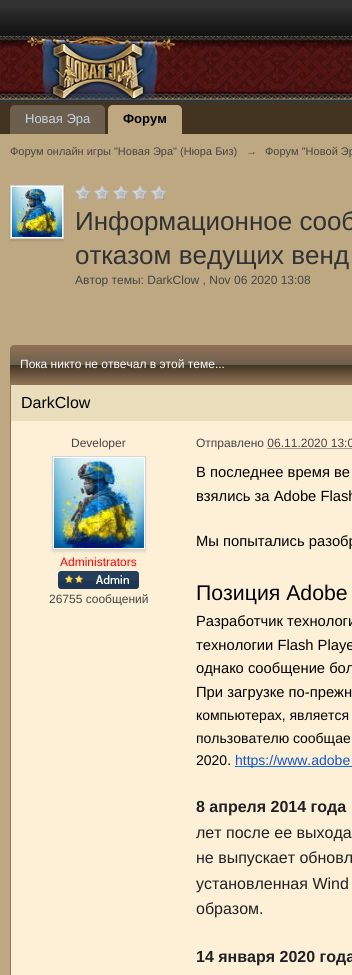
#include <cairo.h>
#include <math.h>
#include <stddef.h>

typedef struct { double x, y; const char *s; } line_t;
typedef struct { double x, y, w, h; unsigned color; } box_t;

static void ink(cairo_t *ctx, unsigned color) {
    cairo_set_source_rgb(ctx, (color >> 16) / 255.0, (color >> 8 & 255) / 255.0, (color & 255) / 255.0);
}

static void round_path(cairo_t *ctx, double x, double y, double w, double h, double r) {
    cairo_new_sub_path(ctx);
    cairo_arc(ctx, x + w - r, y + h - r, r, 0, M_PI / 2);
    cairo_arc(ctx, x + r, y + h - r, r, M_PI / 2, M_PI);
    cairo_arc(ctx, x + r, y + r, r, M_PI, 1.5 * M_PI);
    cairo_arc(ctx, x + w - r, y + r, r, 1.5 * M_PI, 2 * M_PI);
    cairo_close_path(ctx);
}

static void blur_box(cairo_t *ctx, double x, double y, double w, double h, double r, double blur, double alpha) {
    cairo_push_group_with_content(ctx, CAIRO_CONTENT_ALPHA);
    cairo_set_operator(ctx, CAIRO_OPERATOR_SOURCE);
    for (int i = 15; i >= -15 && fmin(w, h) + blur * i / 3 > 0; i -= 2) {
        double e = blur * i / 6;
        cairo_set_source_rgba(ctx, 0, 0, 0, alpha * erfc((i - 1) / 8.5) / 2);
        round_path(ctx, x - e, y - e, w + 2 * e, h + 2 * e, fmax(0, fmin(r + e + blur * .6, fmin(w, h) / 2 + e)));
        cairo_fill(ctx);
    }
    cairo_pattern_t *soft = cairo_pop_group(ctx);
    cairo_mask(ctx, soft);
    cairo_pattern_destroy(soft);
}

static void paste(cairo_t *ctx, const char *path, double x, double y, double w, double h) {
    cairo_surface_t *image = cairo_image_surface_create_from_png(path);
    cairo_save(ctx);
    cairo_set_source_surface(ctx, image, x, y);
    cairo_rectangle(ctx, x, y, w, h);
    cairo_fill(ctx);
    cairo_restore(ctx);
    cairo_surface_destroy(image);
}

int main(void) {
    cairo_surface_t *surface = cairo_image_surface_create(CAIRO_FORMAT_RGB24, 352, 975);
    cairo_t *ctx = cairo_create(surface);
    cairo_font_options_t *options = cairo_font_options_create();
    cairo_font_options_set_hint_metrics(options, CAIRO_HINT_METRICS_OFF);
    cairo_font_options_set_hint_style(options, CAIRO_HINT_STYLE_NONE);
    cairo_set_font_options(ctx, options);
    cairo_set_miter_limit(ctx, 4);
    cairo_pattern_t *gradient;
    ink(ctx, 0xFFFFFF);
    cairo_paint(ctx);
    paste(ctx, "media/1.png", 0, 36, 352, 64);
    ink(ctx, 0x323232);
    cairo_rectangle(ctx, 0, 0, 352, 8);
    cairo_fill(ctx);
    paste(ctx, "media/2.png", 0, 8, 352, 28);
    paste(ctx, "media/3.png", 0, 36, 352, 64);
    ink(ctx, 0x1B3759);
    cairo_rectangle(ctx, 0, 100, 352, 1);
    cairo_fill(ctx);
    paste(ctx, "media/4.png", 27, 36, 148, 64);
    ink(ctx, 0x423421);
    cairo_rectangle(ctx, 0, 101, 352, 33);
    cairo_fill(ctx);
    ink(ctx, 0x6C5F4E);
    cairo_new_path(ctx);
    cairo_move_to(ctx, 15, 105);
    cairo_line_to(ctx, 100, 105);
    cairo_curve_to(ctx, 103, 105, 105, 107, 105, 110);
    cairo_line_to(ctx, 105, 134);
    cairo_line_to(ctx, 10, 134);
    cairo_line_to(ctx, 10, 110);
    cairo_curve_to(ctx, 10, 107, 12, 105, 15, 105);
    cairo_close_path(ctx);
    cairo_fill(ctx);
    cairo_select_font_face(ctx, "Liberation Sans", CAIRO_FONT_SLANT_NORMAL, CAIRO_FONT_WEIGHT_NORMAL);
    cairo_set_font_size(ctx, 13);
    ink(ctx, 0xC5D5E2);
    cairo_move_to(ctx, 25, 123);
    cairo_show_text(ctx, "Новая Эра");
    ink(ctx, 0xBEA882);
    cairo_new_path(ctx);
    cairo_move_to(ctx, 113, 105);
    cairo_line_to(ctx, 177, 105);
    cairo_curve_to(ctx, 180, 105, 182, 107, 182, 110);
    cairo_line_to(ctx, 182, 134);
    cairo_line_to(ctx, 108, 134);
    cairo_line_to(ctx, 108, 110);
    cairo_curve_to(ctx, 108, 107, 110, 105, 113, 105);
    cairo_close_path(ctx);
    cairo_fill(ctx);
    cairo_select_font_face(ctx, "Liberation Sans", CAIRO_FONT_SLANT_NORMAL, CAIRO_FONT_WEIGHT_BOLD);
    ink(ctx, 0x000000);
    cairo_move_to(ctx, 123, 123);
    cairo_show_text(ctx, "Форум");
    ink(ctx, 0xBEA882);
    cairo_rectangle(ctx, 0, 134, 352, 841);
    cairo_fill(ctx);
    cairo_select_font_face(ctx, "Liberation Sans", CAIRO_FONT_SLANT_NORMAL, CAIRO_FONT_WEIGHT_NORMAL);
    cairo_set_font_size(ctx, 11);
    ink(ctx, 0x444444);
    {
        static const line_t items[] = {
            {10, 155, "Форум онлайн игры \"Новая Эра\" (Нюра Биз)"},
            {246, 155, "→"},
            {265, 155, "Форум \"Новой Эр"},
        };
        for (size_t i = 0; i < sizeof items / sizeof *items; i++) {
            cairo_move_to(ctx, items[i].x, items[i].y);
            cairo_show_text(ctx, items[i].s);
        }
    }
    ink(ctx, 0x000000);
    blur_box(ctx, 10, 187, 54, 54, 0, 1, 0.1);
    ink(ctx, 0xFFFFFF);
    cairo_rectangle(ctx, 10.5, 185.5, 53, 53);
    cairo_fill_preserve(ctx);
    ink(ctx, 0xD5D5D5);
    cairo_set_line_width(ctx, 1);
    cairo_stroke(ctx);
    paste(ctx, "media/5.png", 12, 187, 50, 50);
    paste(ctx, "media/6.png", 75, 185, 16, 16);
    paste(ctx, "media/6.png", 94, 185, 16, 16);
    paste(ctx, "media/6.png", 113, 185, 16, 16);
    paste(ctx, "media/6.png", 132, 185, 16, 16);
    paste(ctx, "media/6.png", 151, 185, 16, 16);
    cairo_set_font_size(ctx, 26);
    ink(ctx, 0x323232);
    cairo_move_to(ctx, 75, 230);
    cairo_show_text(ctx, "Информационное сооб");
    cairo_move_to(ctx, 75, 264);
    cairo_show_text(ctx, "отказом ведущих венд");
    cairo_set_font_size(ctx, 12);
    ink(ctx, 0x444444);
    cairo_move_to(ctx, 75, 284);
    cairo_show_text(ctx, "Автор темы: DarkClow , Nov 06 2020 13:08");
    gradient = cairo_pattern_create_linear(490, 345, 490, 384);
    cairo_pattern_add_color_stop_rgba(gradient, 0, 0.565, 0.451, 0.337, 1);
    cairo_pattern_add_color_stop_rgba(gradient, 0.5, 0.424, 0.373, 0.306, 1);
    cairo_pattern_add_color_stop_rgba(gradient, 0.51, 0.259, 0.204, 0.129, 1);
    cairo_pattern_add_color_stop_rgba(gradient, 1, 0.565, 0.451, 0.337, 1);
    cairo_set_source(ctx, gradient);
    cairo_pattern_destroy(gradient);
    cairo_new_path(ctx);
    cairo_move_to(ctx, 14, 345);
    cairo_line_to(ctx, 352, 345);
    cairo_curve_to(ctx, 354, 345, 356, 347, 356, 349);
    cairo_line_to(ctx, 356, 384);
    cairo_line_to(ctx, 10, 384);
    cairo_line_to(ctx, 10, 349);
    cairo_curve_to(ctx, 10, 347, 12, 345, 14, 345);
    cairo_close_path(ctx);
    cairo_fill(ctx);
    ink(ctx, 0xFFFFFF);
    cairo_move_to(ctx, 20, 368);
    cairo_show_text(ctx, "Пока никто не отвечал в этой теме...");
    {
        static const box_t items[] = {
            {10, 384, 342, 591, 0x907356},
            {11, 421, 341, 554, 0xFEF0D7},
            {11, 385, 341, 36, 0xEADDBB},
        };
        for (size_t i = 0; i < sizeof items / sizeof *items; i++) {
            ink(ctx, items[i].color);
            cairo_rectangle(ctx, items[i].x, items[i].y, items[i].w, items[i].h);
            cairo_fill(ctx);
        }
    }
    cairo_set_font_size(ctx, 16);
    ink(ctx, 0x000000);
    cairo_move_to(ctx, 21, 408);
    cairo_show_text(ctx, "DarkClow");
    cairo_set_font_size(ctx, 12);
    ink(ctx, 0x444444);
    cairo_move_to(ctx, 71, 447);
    cairo_show_text(ctx, "Developer");
    ink(ctx, 0x000000);
    blur_box(ctx, 52, 458, 94, 94, 0, 1, 0.1);
    ink(ctx, 0xFFFFFF);
    cairo_rectangle(ctx, 52.5, 456.5, 93, 93);
    cairo_fill_preserve(ctx);
    ink(ctx, 0xD5D5D5);
    cairo_stroke(ctx);
    paste(ctx, "media/7.png", 54, 458, 90, 90);
    ink(ctx, 0xFF0000);
    cairo_move_to(ctx, 60, 566);
    cairo_show_text(ctx, "Administrators");
    paste(ctx, "media/8.png", 58, 571, 81, 18);
    ink(ctx, 0x444444);
    cairo_move_to(ctx, 49, 603);
    cairo_show_text(ctx, "26755 сообщений");
    cairo_move_to(ctx, 196, 447);
    cairo_show_text(ctx, "Отправлено 06.11.2020 13:0");
    cairo_new_path(ctx);
    cairo_move_to(ctx, 267.5, 448.5);
    cairo_line_to(ctx, 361, 448.5);
    cairo_set_dash(ctx, (double[]){1, 1}, 2, 0);
    cairo_stroke(ctx);
    cairo_set_font_size(ctx, 14.75);
    ink(ctx, 0x000000);
    {
        static const line_t items[] = {
            {196, 477, "В последнее время ве"},
            {196, 501, "взялись за Adobe Flash"},
            {196, 546, "Мы попытались разобр"},
        };
        for (size_t i = 0; i < sizeof items / sizeof *items; i++) {
            cairo_move_to(ctx, items[i].x, items[i].y);
            cairo_show_text(ctx, items[i].s);
        }
    }
    cairo_set_font_size(ctx, 21.25);
    cairo_move_to(ctx, 196, 600);
    cairo_show_text(ctx, "Позиция Adobe");
    cairo_set_font_size(ctx, 14.75);
    {
        static const line_t items[] = {
            {196, 626, "Разработчик технологи"},
            {196, 650, "технологии Flash Playe"},
            {196, 673, "однако сообщение бол"},
            {196, 697, "При загрузке по-прежн"},
        };
        for (size_t i = 0; i < sizeof items / sizeof *items; i++) {
            cairo_move_to(ctx, items[i].x, items[i].y);
            cairo_show_text(ctx, items[i].s);
        }
    }
    cairo_set_font_size(ctx, 14);
    {
        static const line_t items[] = {
            {196, 720, "компьютерах, является"},
            {196, 743, "пользователю сообщае"},
            {196, 765, "2020."},
        };
        for (size_t i = 0; i < sizeof items / sizeof *items; i++) {
            cairo_move_to(ctx, items[i].x, items[i].y);
            cairo_show_text(ctx, items[i].s);
        }
    }
    ink(ctx, 0x0F72DA);
    cairo_rectangle(ctx, 235, 766, 117, 1);
    cairo_fill(ctx);
    ink(ctx, 0x1155CC);
    cairo_move_to(ctx, 235, 765);
    cairo_show_text(ctx, "https://www.adobe");
    cairo_select_font_face(ctx, "Liberation Sans", CAIRO_FONT_SLANT_NORMAL, CAIRO_FONT_WEIGHT_BOLD);
    cairo_set_font_size(ctx, 16);
    ink(ctx, 0x202124);
    cairo_move_to(ctx, 196, 812);
    cairo_show_text(ctx, "8 апреля 2014 года");
    cairo_select_font_face(ctx, "Liberation Sans", CAIRO_FONT_SLANT_NORMAL, CAIRO_FONT_WEIGHT_NORMAL);
    {
        static const line_t items[] = {
            {196, 838, "лет после ее выхода"},
            {196, 863, "не выпускает обновл"},
            {196, 889, "установленная Wind"},
            {196, 914, "образом."},
        };
        for (size_t i = 0; i < sizeof items / sizeof *items; i++) {
            cairo_move_to(ctx, items[i].x, items[i].y);
            cairo_show_text(ctx, items[i].s);
        }
    }
    cairo_select_font_face(ctx, "Liberation Sans", CAIRO_FONT_SLANT_NORMAL, CAIRO_FONT_WEIGHT_BOLD);
    cairo_move_to(ctx, 196, 962);
    cairo_show_text(ctx, "14 января 2020 года");
    cairo_surface_write_to_png(surface, "image.png");
    cairo_font_options_destroy(options);
    cairo_destroy(ctx);
    cairo_surface_destroy(surface);
    return 0;
}
